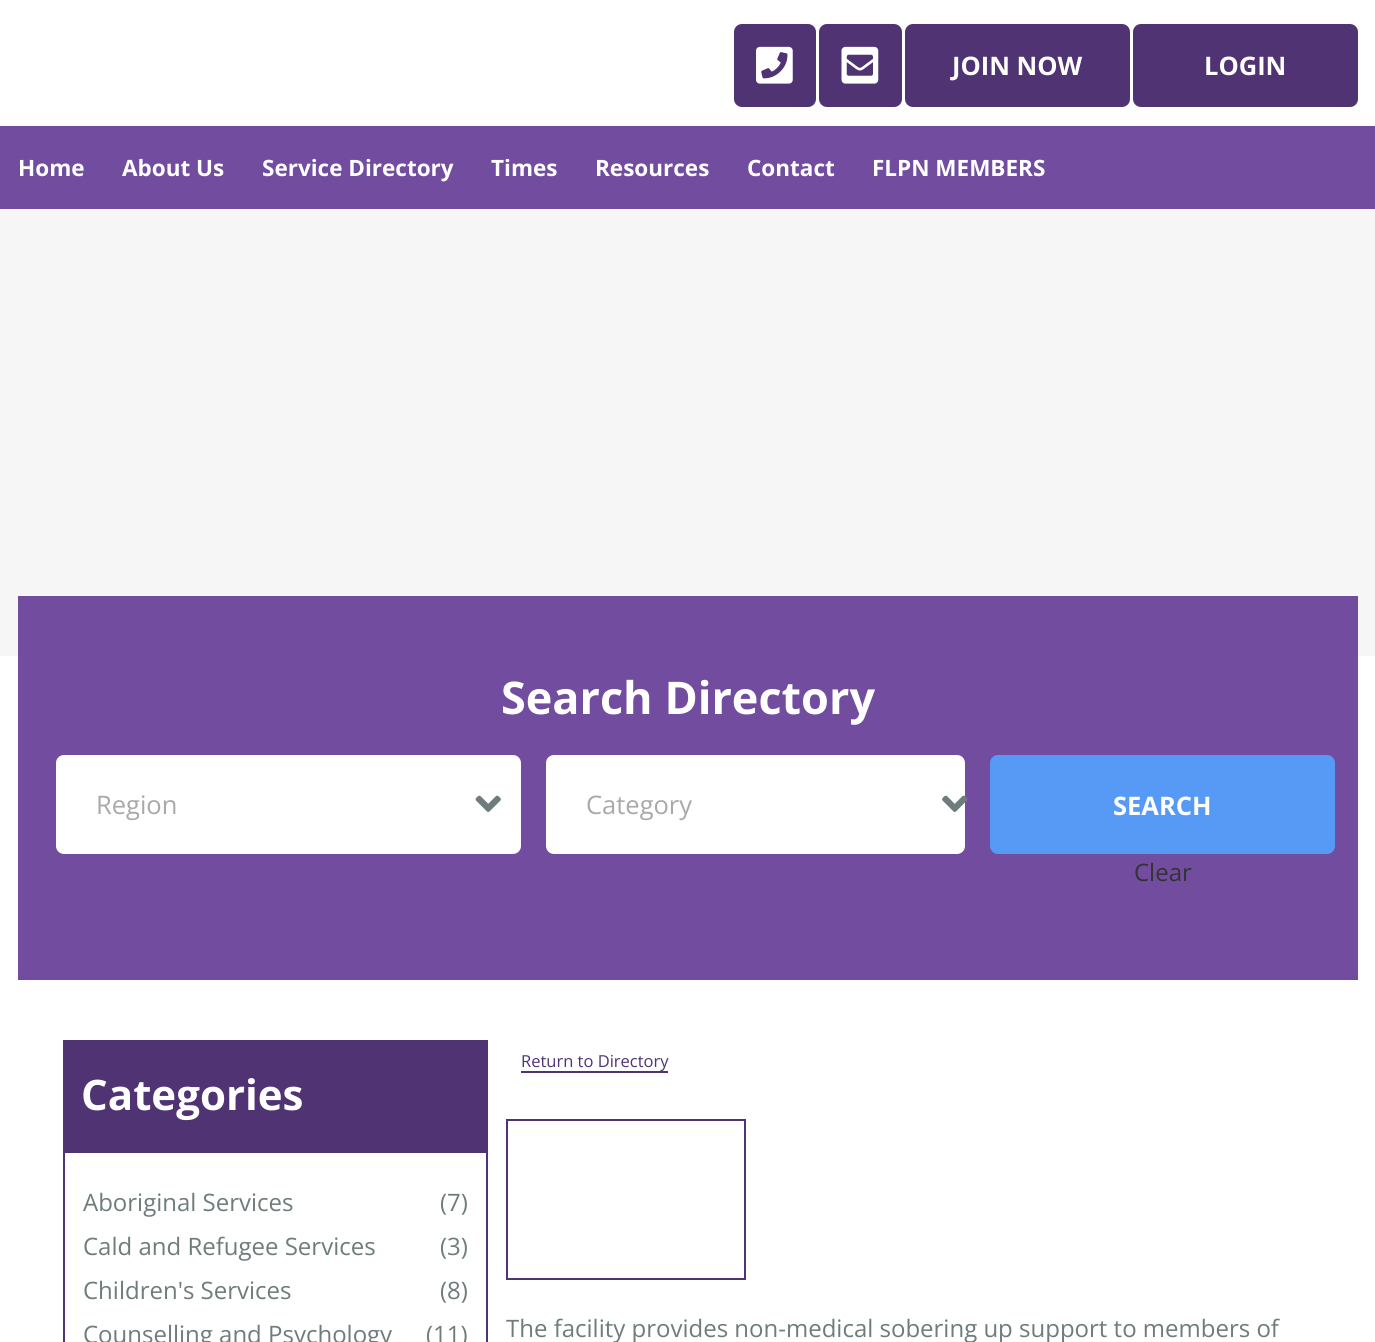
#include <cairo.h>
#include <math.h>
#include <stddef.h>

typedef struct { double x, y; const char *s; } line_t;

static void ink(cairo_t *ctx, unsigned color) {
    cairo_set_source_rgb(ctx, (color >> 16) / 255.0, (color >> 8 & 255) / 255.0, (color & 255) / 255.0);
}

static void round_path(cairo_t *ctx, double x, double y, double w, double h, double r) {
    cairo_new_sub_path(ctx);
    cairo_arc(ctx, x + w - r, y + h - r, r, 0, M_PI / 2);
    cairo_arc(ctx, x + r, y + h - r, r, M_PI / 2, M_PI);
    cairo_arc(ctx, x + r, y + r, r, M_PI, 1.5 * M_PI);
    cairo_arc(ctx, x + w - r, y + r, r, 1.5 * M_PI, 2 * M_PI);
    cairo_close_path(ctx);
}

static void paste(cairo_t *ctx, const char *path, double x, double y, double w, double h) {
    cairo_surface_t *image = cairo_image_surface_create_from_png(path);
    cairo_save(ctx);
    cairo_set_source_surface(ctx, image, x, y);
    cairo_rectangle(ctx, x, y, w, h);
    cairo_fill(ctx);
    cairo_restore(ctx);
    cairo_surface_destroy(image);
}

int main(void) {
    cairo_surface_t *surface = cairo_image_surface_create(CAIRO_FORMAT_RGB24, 1375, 1342);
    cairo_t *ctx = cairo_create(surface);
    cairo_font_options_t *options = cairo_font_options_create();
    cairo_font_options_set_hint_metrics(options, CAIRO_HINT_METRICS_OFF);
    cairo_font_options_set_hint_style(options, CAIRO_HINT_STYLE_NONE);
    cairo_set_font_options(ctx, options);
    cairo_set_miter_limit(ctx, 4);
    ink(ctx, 0xFFFFFF);
    cairo_paint(ctx);
    ink(ctx, 0x4F3373);
    round_path(ctx, 734, 24, 82, 83, 8);
    cairo_fill(ctx);
    paste(ctx, "media/1.png", 756, 46, 37, 38);
    round_path(ctx, 819, 24, 83, 83, 8);
    cairo_fill(ctx);
    paste(ctx, "media/2.png", 841, 46, 38, 38);
    round_path(ctx, 905, 24, 225, 83, 8);
    cairo_fill(ctx);
    cairo_select_font_face(ctx, "Open Sans", CAIRO_FONT_SLANT_NORMAL, CAIRO_FONT_WEIGHT_BOLD);
    cairo_set_font_size(ctx, 25.5);
    ink(ctx, 0xFFFFFF);
    cairo_move_to(ctx, 952, 75);
    cairo_show_text(ctx, "JOIN NOW");
    ink(ctx, 0x4F3373);
    round_path(ctx, 1133, 24, 225, 83, 8);
    cairo_fill(ctx);
    ink(ctx, 0xFFFFFF);
    cairo_move_to(ctx, 1204, 75);
    cairo_show_text(ctx, "LOGIN");
    ink(ctx, 0x714C9F);
    cairo_rectangle(ctx, 0, 126, 1375, 83);
    cairo_fill(ctx);
    cairo_set_font_size(ctx, 22.5);
    ink(ctx, 0xFFFFFF);
    {
        static const line_t items[] = {
            {18, 176, "Home"},
            {122, 176, "About Us"},
            {262, 176, "Service Directory"},
            {491, 176, "Times"},
            {595, 176, "Resources"},
            {747, 176, "Contact"},
            {872, 176, "FLPN MEMBERS"},
        };
        for (size_t i = 0; i < sizeof items / sizeof *items; i++) {
            cairo_move_to(ctx, items[i].x, items[i].y);
            cairo_show_text(ctx, items[i].s);
        }
    }
    ink(ctx, 0xF6F6F6);
    cairo_rectangle(ctx, 0, 209, 1375, 447);
    cairo_fill(ctx);
    ink(ctx, 0x714C9F);
    cairo_rectangle(ctx, 18, 596, 1340, 384);
    cairo_fill(ctx);
    cairo_set_font_size(ctx, 45);
    ink(ctx, 0xFFFFFF);
    cairo_move_to(ctx, 501, 714);
    cairo_show_text(ctx, "Search Directory");
    round_path(ctx, 57.5, 756.5, 462, 96, 6.5);
    cairo_fill_preserve(ctx);
    cairo_set_line_width(ctx, 3);
    cairo_stroke(ctx);
    cairo_select_font_face(ctx, "Open Sans", CAIRO_FONT_SLANT_NORMAL, CAIRO_FONT_WEIGHT_NORMAL);
    cairo_set_font_size(ctx, 25.5);
    ink(ctx, 0xAAA9A9);
    cairo_move_to(ctx, 96, 814);
    cairo_show_text(ctx, "Region");
    paste(ctx, "media/3.png", 475, 795, 26, 17);
    ink(ctx, 0xFFFFFF);
    round_path(ctx, 547.5, 756.5, 416, 96, 6.5);
    cairo_fill_preserve(ctx);
    cairo_stroke(ctx);
    ink(ctx, 0xAAA9A9);
    cairo_move_to(ctx, 586, 814);
    cairo_show_text(ctx, "Category");
    paste(ctx, "media/4.png", 942, 795, 26, 17);
    ink(ctx, 0x569AF6);
    round_path(ctx, 990, 755, 345, 99, 8);
    cairo_fill(ctx);
    cairo_select_font_face(ctx, "Open Sans", CAIRO_FONT_SLANT_NORMAL, CAIRO_FONT_WEIGHT_BOLD);
    ink(ctx, 0xFFFFFF);
    cairo_move_to(ctx, 1113, 815);
    cairo_show_text(ctx, "SEARCH");
    cairo_select_font_face(ctx, "Open Sans", CAIRO_FONT_SLANT_NORMAL, CAIRO_FONT_WEIGHT_NORMAL);
    cairo_set_font_size(ctx, 24);
    ink(ctx, 0x333333);
    cairo_move_to(ctx, 1134, 881);
    cairo_show_text(ctx, "Clear");
    ink(ctx, 0x4F3373);
    cairo_rectangle(ctx, 63, 1040, 425, 111);
    cairo_fill(ctx);
    cairo_select_font_face(ctx, "Open Sans", CAIRO_FONT_SLANT_NORMAL, CAIRO_FONT_WEIGHT_BOLD);
    cairo_set_font_size(ctx, 42);
    ink(ctx, 0xFFFFFF);
    cairo_move_to(ctx, 81, 1110);
    cairo_show_text(ctx, "Categories");
    cairo_rectangle(ctx, 64, 1152, 423, 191);
    ink(ctx, 0x4F3373);
    cairo_set_line_width(ctx, 2);
    cairo_stroke(ctx);
    cairo_select_font_face(ctx, "Open Sans", CAIRO_FONT_SLANT_NORMAL, CAIRO_FONT_WEIGHT_NORMAL);
    cairo_set_font_size(ctx, 24);
    ink(ctx, 0x6F7C7C);
    {
        static const line_t items[] = {
            {83, 1211, "Aboriginal Services"},
            {440, 1211, "(7)"},
            {83, 1255, "Cald and Refugee Services"},
            {440, 1255, "(3)"},
            {83, 1299, "Children's Services"},
            {440, 1299, "(8)"},
            {83, 1343, "Counselling and Psychology"},
            {426, 1343, "(11)"},
        };
        for (size_t i = 0; i < sizeof items / sizeof *items; i++) {
            cairo_move_to(ctx, items[i].x, items[i].y);
            cairo_show_text(ctx, items[i].s);
        }
    }
    cairo_set_font_size(ctx, 16.5);
    ink(ctx, 0x4F3373);
    cairo_move_to(ctx, 521, 1067);
    cairo_show_text(ctx, "Return to Directory");
    cairo_rectangle(ctx, 521, 1071, 147, 2);
    cairo_fill(ctx);
    cairo_rectangle(ctx, 507, 1120, 238, 159);
    cairo_stroke(ctx);
    cairo_set_font_size(ctx, 24);
    ink(ctx, 0x6F7C7C);
    cairo_move_to(ctx, 506, 1337);
    cairo_show_text(ctx, "The facility provides non-medical sobering up support to members of");
    cairo_surface_write_to_png(surface, "image.png");
    cairo_font_options_destroy(options);
    cairo_destroy(ctx);
    cairo_surface_destroy(surface);
    return 0;
}
